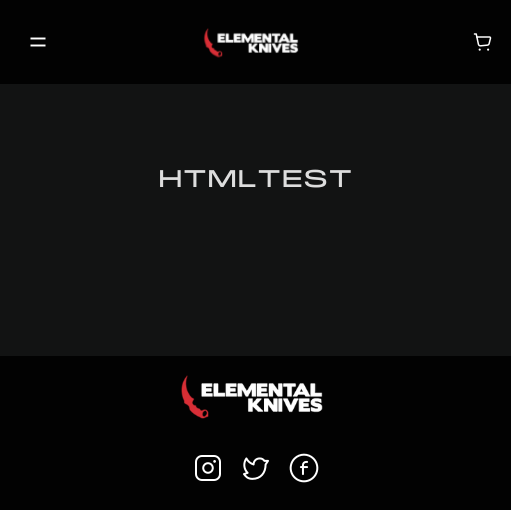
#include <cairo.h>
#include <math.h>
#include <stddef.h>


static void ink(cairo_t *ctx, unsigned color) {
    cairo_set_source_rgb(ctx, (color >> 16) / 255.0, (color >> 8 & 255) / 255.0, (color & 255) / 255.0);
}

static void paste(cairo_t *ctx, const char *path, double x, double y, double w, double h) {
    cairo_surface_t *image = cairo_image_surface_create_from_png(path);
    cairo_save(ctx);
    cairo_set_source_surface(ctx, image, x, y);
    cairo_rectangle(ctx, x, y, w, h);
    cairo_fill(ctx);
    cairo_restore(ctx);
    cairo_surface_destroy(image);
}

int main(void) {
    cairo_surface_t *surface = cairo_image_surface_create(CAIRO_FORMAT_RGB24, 511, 510);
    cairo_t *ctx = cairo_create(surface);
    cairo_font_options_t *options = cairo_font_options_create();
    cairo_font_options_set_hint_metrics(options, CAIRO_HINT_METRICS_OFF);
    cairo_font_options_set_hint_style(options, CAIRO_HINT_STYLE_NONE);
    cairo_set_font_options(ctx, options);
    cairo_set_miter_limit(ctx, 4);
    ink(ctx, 0x121313);
    cairo_paint(ctx);
    ink(ctx, 0x020202);
    cairo_rectangle(ctx, 0, 0, 511, 84);
    cairo_fill(ctx);
    cairo_new_path(ctx);
    cairo_move_to(ctx, 30.5, 45.5);
    cairo_line_to(ctx, 45.5, 45.5);
    cairo_move_to(ctx, 45.5, 38.5);
    cairo_line_to(ctx, 30.5, 38.5);
    ink(ctx, 0xFFFFFF);
    cairo_set_line_width(ctx, 1.9);
    cairo_set_line_join(ctx, CAIRO_LINE_JOIN_BEVEL);
    cairo_stroke(ctx);
    paste(ctx, "media/1.png", 203, 28, 96, 30);
    paste(ctx, "media/2.png", 473, 33, 19, 18);
    cairo_select_font_face(ctx, "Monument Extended", CAIRO_FONT_SLANT_NORMAL, CAIRO_FONT_WEIGHT_NORMAL);
    cairo_set_font_size(ctx, 24);
    ink(ctx, 0xDDDDDD);
    cairo_move_to(ctx, 158, 187);
    cairo_show_text(ctx, "HTMLTEST");
    ink(ctx, 0x020202);
    cairo_rectangle(ctx, 0, 356, 511, 154);
    cairo_fill(ctx);
    paste(ctx, "media/3.png", 181, 375, 142, 44);
    paste(ctx, "media/4.png", 195, 455, 26, 26);
    paste(ctx, "media/5.png", 243, 457, 26, 23);
    paste(ctx, "media/6.png", 289, 453, 30, 30);
    cairo_surface_write_to_png(surface, "image.png");
    cairo_font_options_destroy(options);
    cairo_destroy(ctx);
    cairo_surface_destroy(surface);
    return 0;
}
